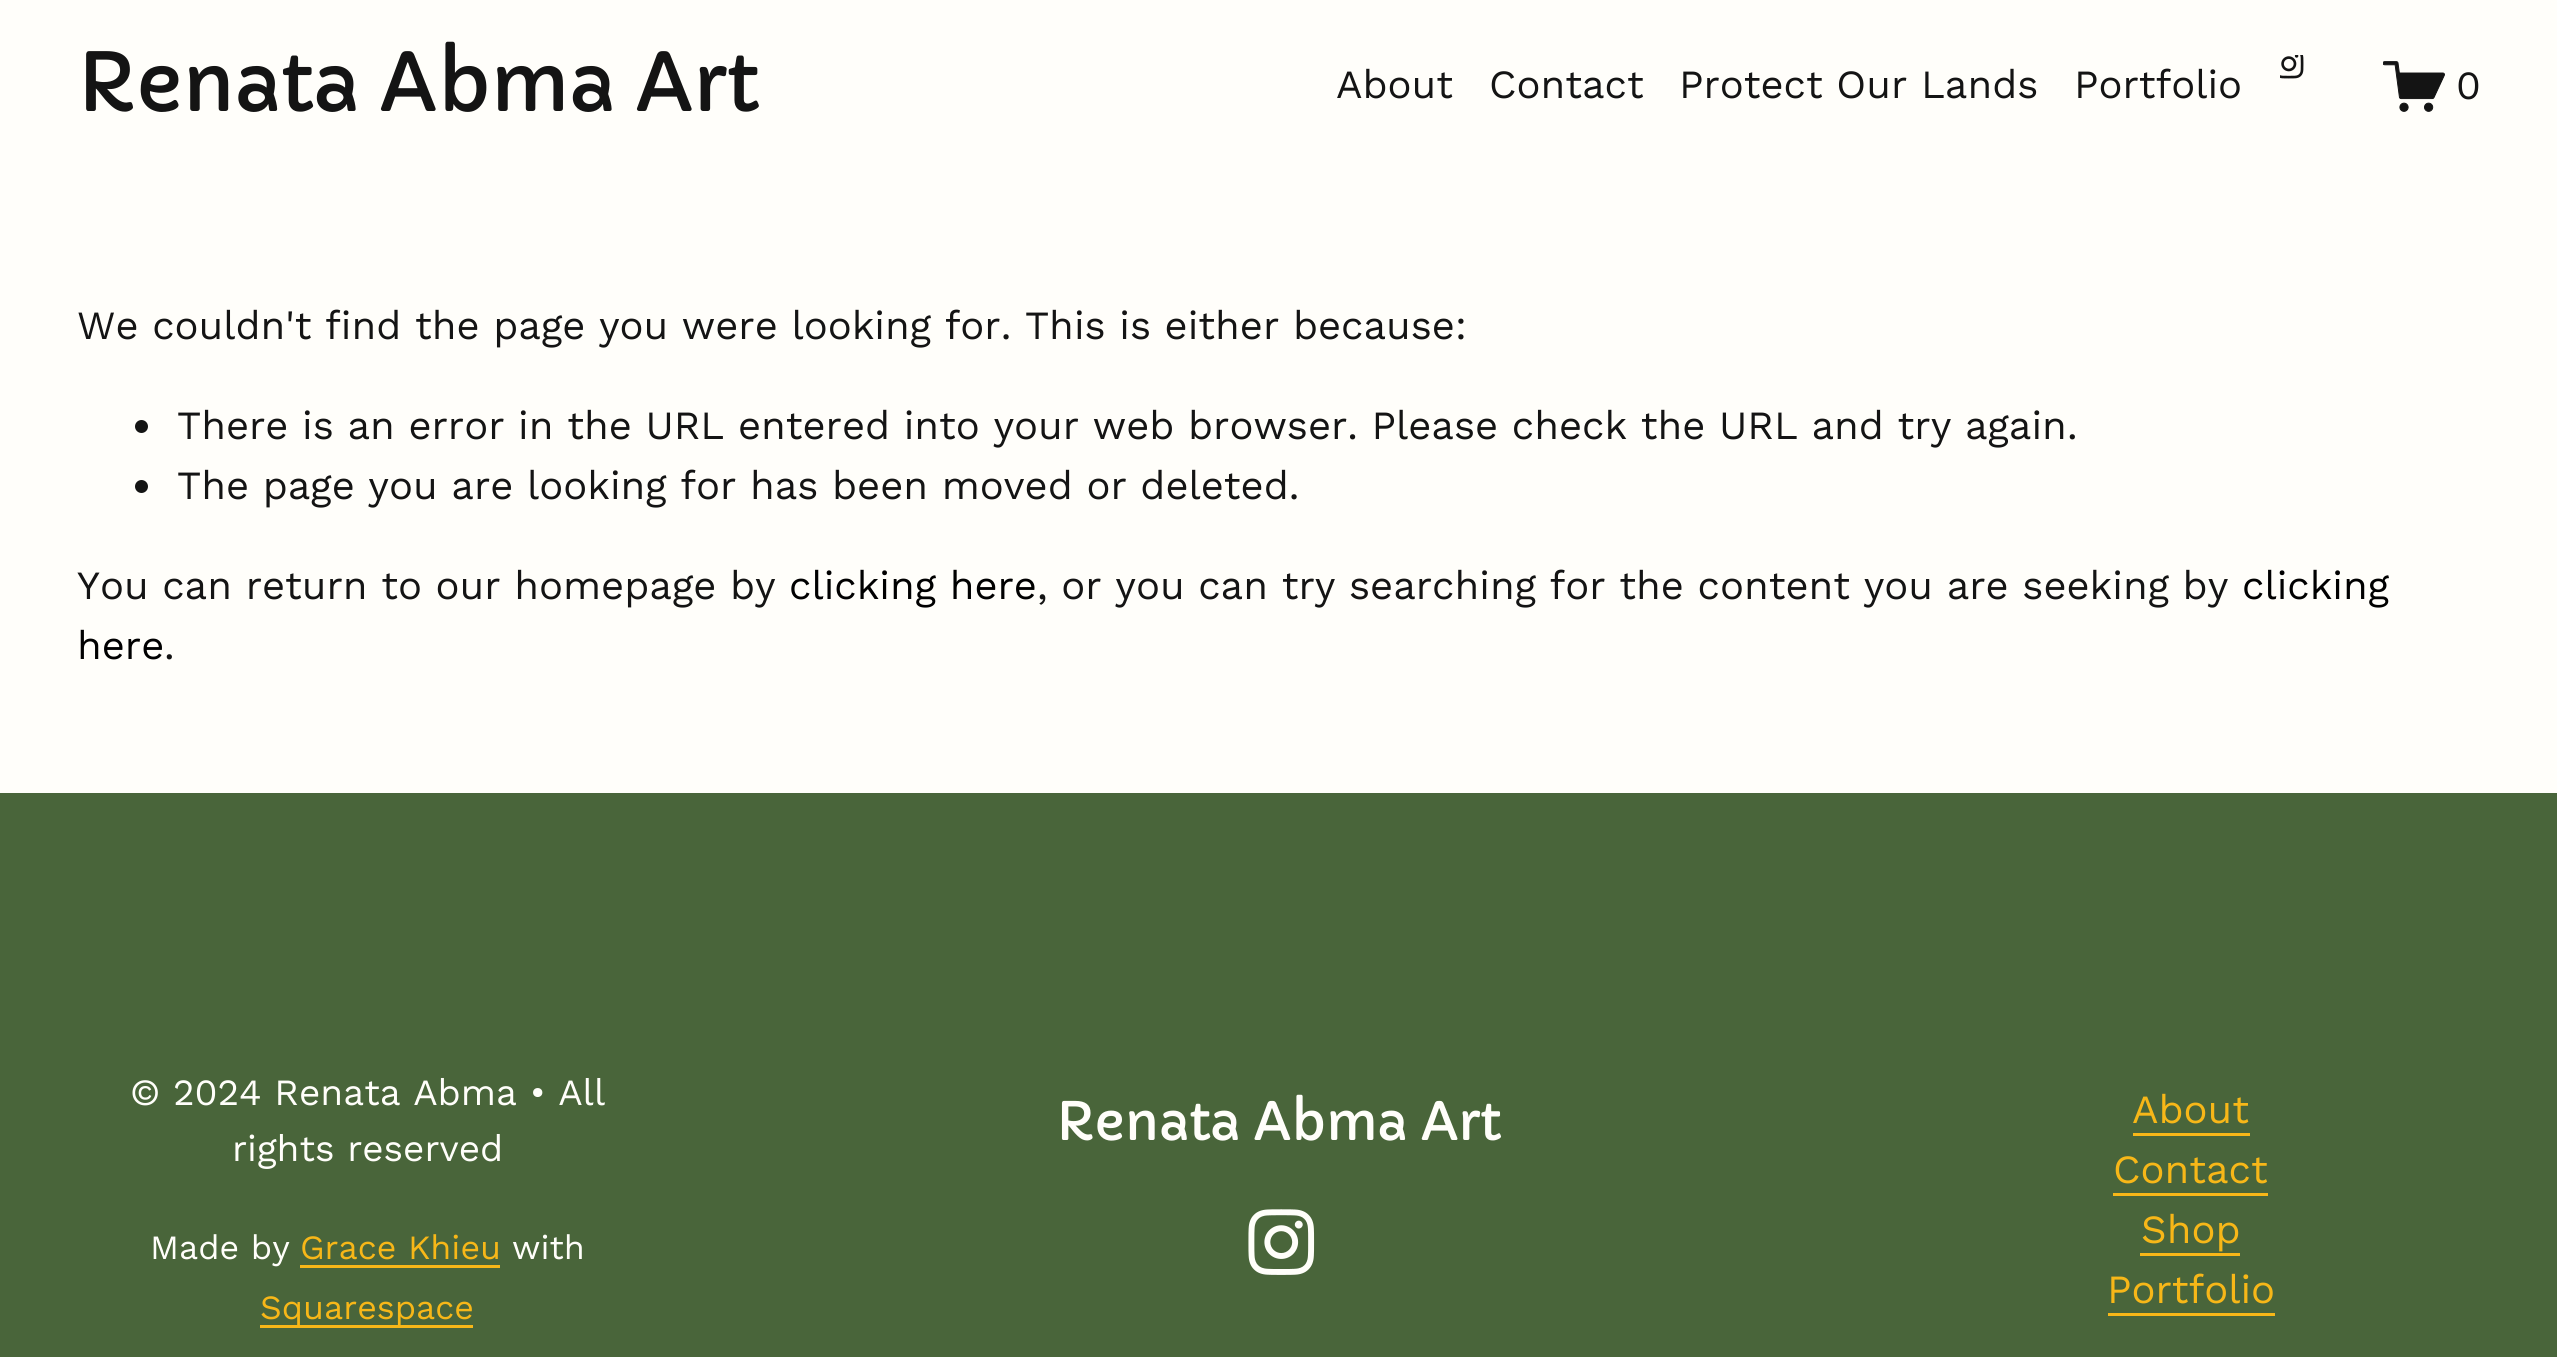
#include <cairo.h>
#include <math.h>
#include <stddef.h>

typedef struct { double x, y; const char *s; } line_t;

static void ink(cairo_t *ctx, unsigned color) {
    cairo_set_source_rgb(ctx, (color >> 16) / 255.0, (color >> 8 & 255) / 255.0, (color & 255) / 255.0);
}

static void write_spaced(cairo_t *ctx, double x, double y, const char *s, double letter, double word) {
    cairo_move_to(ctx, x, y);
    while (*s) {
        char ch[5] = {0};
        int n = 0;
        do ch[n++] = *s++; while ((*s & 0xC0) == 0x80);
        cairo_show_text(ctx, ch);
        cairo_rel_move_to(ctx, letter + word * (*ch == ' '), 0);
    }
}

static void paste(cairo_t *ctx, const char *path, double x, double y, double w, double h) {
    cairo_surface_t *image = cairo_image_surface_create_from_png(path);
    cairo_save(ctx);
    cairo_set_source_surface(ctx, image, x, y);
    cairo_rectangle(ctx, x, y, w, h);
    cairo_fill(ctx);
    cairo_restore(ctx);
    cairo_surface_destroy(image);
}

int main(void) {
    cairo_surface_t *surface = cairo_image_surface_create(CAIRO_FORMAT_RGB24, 2557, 1357);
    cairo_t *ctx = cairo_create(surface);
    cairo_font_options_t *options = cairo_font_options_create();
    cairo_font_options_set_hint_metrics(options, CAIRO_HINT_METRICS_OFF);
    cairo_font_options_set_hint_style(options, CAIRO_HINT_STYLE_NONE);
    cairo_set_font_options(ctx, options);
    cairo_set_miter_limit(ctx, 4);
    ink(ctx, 0xFFFEFA);
    cairo_paint(ctx);
    cairo_select_font_face(ctx, "Capriola", CAIRO_FONT_SLANT_NORMAL, CAIRO_FONT_WEIGHT_NORMAL);
    cairo_set_font_size(ctx, 80);
    ink(ctx, 0x141414);
    write_spaced(ctx, 77, 111, "Renata Abma Art", -0.75, 0);
    cairo_select_font_face(ctx, "Work Sans", CAIRO_FONT_SLANT_NORMAL, CAIRO_FONT_WEIGHT_NORMAL);
    cairo_set_font_size(ctx, 40);
    {
        static const line_t items[] = {
            {1336, 98, "About"},
            {1489, 98, "Contact"},
            {1679, 98, "Protect Our Lands"},
            {2074, 98, "Portfolio"},
        };
        for (size_t i = 0; i < sizeof items / sizeof *items; i++) {
            cairo_move_to(ctx, items[i].x, items[i].y);
            cairo_show_text(ctx, items[i].s);
        }
    }
    paste(ctx, "media/1.png", 2280, 55, 24, 24);
    paste(ctx, "media/2.png", 2383, 61, 62, 51);
    cairo_move_to(ctx, 2456, 99);
    cairo_show_text(ctx, "0");
    cairo_move_to(ctx, 77, 339);
    cairo_show_text(ctx, "We couldn't find the page you were looking for. This is either because:");
    cairo_new_path(ctx);
    cairo_arc(ctx, 141.5, 426.5, 6.5, 0, 2 * M_PI);
    cairo_fill(ctx);
    cairo_move_to(ctx, 177, 439);
    cairo_show_text(ctx, "There is an error in the URL entered into your web browser. Please check the URL and try again.");
    cairo_new_path(ctx);
    cairo_arc(ctx, 141.5, 486.5, 6.5, 0, 2 * M_PI);
    cairo_fill(ctx);
    cairo_move_to(ctx, 177, 499);
    cairo_show_text(ctx, "The page you are looking for has been moved or deleted.");
    cairo_move_to(ctx, 77, 599);
    cairo_show_text(ctx, "You can return to our homepage by");
    ink(ctx, 0x000000);
    cairo_move_to(ctx, 789, 599);
    cairo_show_text(ctx, "clicking here");
    ink(ctx, 0x141414);
    cairo_move_to(ctx, 1037, 599);
    cairo_show_text(ctx, ", or you can try searching for the content you are seeking by");
    ink(ctx, 0x000000);
    cairo_move_to(ctx, 2242, 599);
    cairo_show_text(ctx, "clicking");
    cairo_move_to(ctx, 77, 659);
    cairo_show_text(ctx, "here");
    ink(ctx, 0x141414);
    cairo_move_to(ctx, 164, 659);
    cairo_show_text(ctx, ".");
    ink(ctx, 0x49653A);
    cairo_rectangle(ctx, 0, 793, 2557, 564);
    cairo_fill(ctx);
    cairo_set_font_size(ctx, 37);
    ink(ctx, 0xFFFEFA);
    cairo_move_to(ctx, 130, 1105);
    cairo_show_text(ctx, "© 2024 Renata Abma • All");
    cairo_move_to(ctx, 232, 1161);
    cairo_show_text(ctx, "rights reserved");
    cairo_set_font_size(ctx, 34);
    cairo_move_to(ctx, 150, 1259);
    cairo_show_text(ctx, "Made by");
    ink(ctx, 0xF7B718);
    cairo_move_to(ctx, 300, 1259);
    cairo_show_text(ctx, "Grace Khieu");
    cairo_rectangle(ctx, 300, 1265, 200, 3);
    cairo_fill(ctx);
    ink(ctx, 0xFFFEFA);
    cairo_move_to(ctx, 512, 1259);
    cairo_show_text(ctx, "with");
    ink(ctx, 0xF7B718);
    cairo_rectangle(ctx, 260, 1325, 213, 3);
    cairo_fill(ctx);
    cairo_move_to(ctx, 260, 1319);
    cairo_show_text(ctx, "Squarespace");
    cairo_select_font_face(ctx, "Capriola", CAIRO_FONT_SLANT_NORMAL, CAIRO_FONT_WEIGHT_NORMAL);
    cairo_set_font_size(ctx, 52.25);
    ink(ctx, 0xFFFEFA);
    write_spaced(ctx, 1056, 1140, "Renata Abma Art", -0.5, 0);
    cairo_select_font_face(ctx, "Work Sans", CAIRO_FONT_SLANT_NORMAL, CAIRO_FONT_WEIGHT_NORMAL);
    cairo_set_font_size(ctx, 40);
    ink(ctx, 0xF7B718);
    cairo_move_to(ctx, 2132, 1123);
    cairo_show_text(ctx, "About");
    cairo_rectangle(ctx, 2133, 1133, 117, 3);
    cairo_fill(ctx);
    cairo_move_to(ctx, 2113, 1183);
    cairo_show_text(ctx, "Contact");
    cairo_rectangle(ctx, 2113, 1193, 155, 3);
    cairo_fill(ctx);
    cairo_move_to(ctx, 2141, 1243);
    cairo_show_text(ctx, "Shop");
    cairo_rectangle(ctx, 2140, 1253, 100, 3);
    cairo_fill(ctx);
    cairo_move_to(ctx, 2107, 1303);
    cairo_show_text(ctx, "Portfolio");
    cairo_rectangle(ctx, 2108, 1313, 167, 3);
    cairo_fill(ctx);
    paste(ctx, "media/3.png", 1248, 1209, 67, 66);
    cairo_surface_write_to_png(surface, "image.png");
    cairo_font_options_destroy(options);
    cairo_destroy(ctx);
    cairo_surface_destroy(surface);
    return 0;
}
